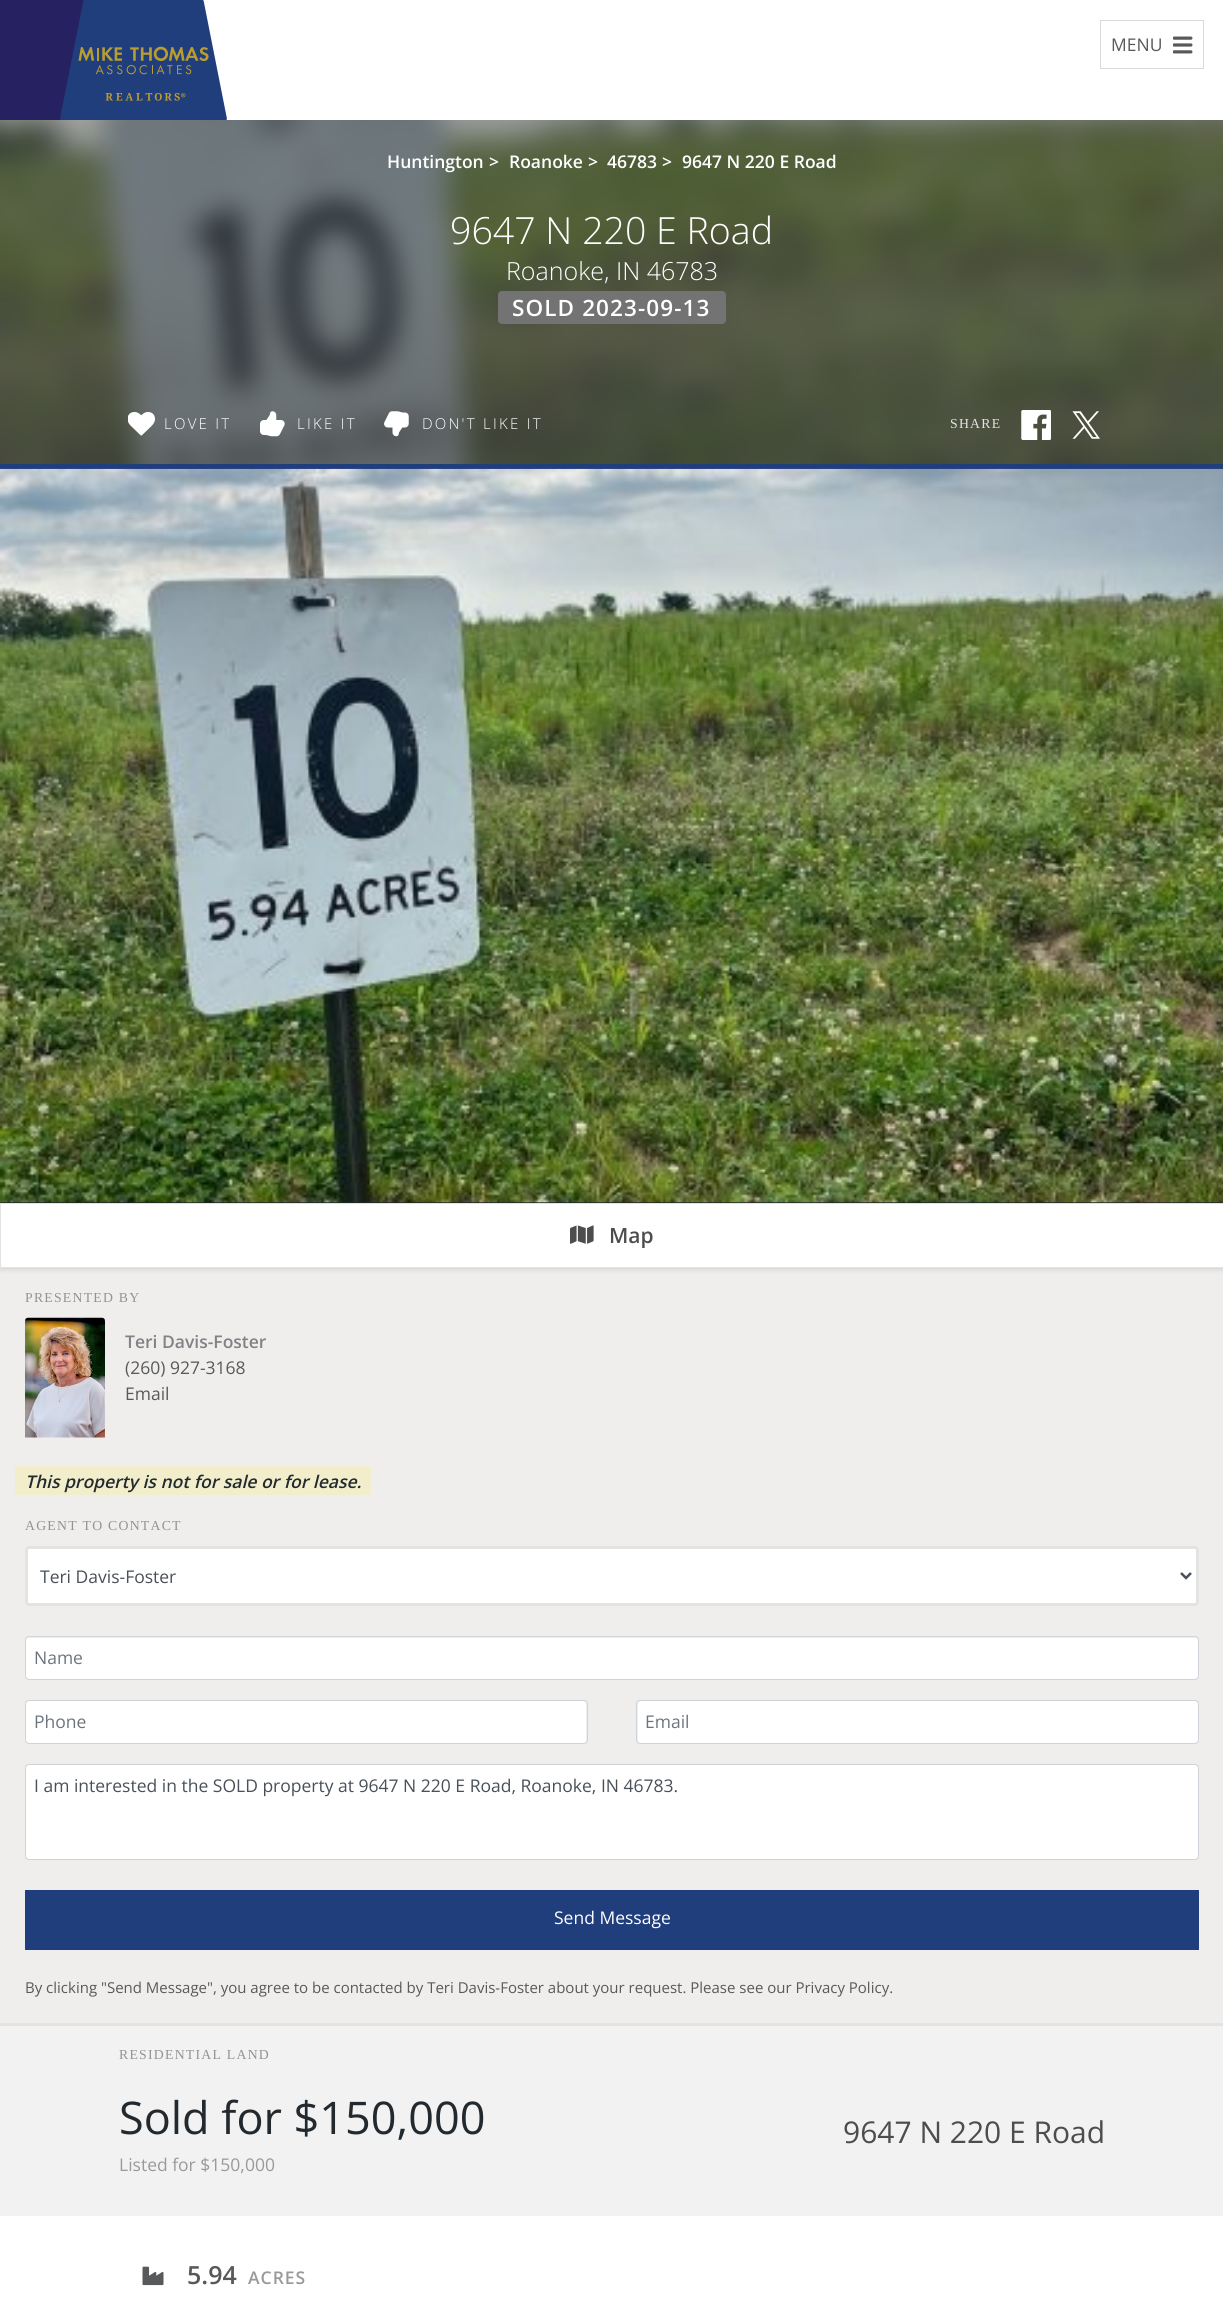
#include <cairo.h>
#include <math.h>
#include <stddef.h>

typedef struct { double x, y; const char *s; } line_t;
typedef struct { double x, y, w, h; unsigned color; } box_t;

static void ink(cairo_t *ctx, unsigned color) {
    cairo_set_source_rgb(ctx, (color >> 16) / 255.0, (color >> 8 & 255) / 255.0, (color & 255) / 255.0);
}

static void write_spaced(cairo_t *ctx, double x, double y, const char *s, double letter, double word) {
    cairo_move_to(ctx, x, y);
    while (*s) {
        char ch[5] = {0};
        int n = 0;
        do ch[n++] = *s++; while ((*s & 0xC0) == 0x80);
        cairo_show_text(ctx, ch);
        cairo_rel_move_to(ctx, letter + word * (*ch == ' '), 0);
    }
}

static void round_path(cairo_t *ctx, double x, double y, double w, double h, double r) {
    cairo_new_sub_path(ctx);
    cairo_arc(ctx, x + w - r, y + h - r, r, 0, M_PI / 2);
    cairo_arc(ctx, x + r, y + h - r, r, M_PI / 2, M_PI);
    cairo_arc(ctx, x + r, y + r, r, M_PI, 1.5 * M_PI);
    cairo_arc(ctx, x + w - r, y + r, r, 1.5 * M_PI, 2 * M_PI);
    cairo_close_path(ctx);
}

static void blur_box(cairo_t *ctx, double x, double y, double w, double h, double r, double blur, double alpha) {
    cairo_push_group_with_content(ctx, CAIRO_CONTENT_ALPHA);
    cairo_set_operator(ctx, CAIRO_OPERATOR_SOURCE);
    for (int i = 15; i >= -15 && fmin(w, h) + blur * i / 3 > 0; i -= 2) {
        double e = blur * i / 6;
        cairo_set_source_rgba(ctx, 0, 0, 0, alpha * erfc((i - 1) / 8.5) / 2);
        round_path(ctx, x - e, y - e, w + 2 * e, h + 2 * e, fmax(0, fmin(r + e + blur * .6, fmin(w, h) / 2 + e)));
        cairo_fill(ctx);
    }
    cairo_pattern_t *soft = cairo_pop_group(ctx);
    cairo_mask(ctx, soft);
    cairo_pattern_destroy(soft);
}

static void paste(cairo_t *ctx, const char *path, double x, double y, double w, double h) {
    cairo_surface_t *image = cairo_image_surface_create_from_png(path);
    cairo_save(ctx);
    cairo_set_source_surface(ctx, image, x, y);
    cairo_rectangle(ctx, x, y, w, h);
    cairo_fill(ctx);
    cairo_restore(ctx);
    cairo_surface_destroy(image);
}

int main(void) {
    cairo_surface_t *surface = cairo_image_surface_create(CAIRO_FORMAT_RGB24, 1223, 2309);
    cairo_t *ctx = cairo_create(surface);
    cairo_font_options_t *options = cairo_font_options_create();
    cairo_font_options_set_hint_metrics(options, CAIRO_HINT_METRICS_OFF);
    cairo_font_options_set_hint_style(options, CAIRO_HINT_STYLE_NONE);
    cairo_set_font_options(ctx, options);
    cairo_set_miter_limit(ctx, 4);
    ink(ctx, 0xFFFFFF);
    cairo_paint(ctx);
    ink(ctx, 0x262262);
    cairo_rectangle(ctx, 0, 0, 85, 120);
    cairo_fill(ctx);
    paste(ctx, "media/1.png", 60, 0, 167, 120);
    cairo_rectangle(ctx, 1100.5, 20.5, 103, 48);
    ink(ctx, 0xD9D9D9);
    cairo_set_line_width(ctx, 1);
    cairo_stroke(ctx);
    cairo_select_font_face(ctx, "Open Sans", CAIRO_FONT_SLANT_NORMAL, CAIRO_FONT_WEIGHT_NORMAL);
    cairo_set_font_size(ctx, 17.5);
    ink(ctx, 0x58595B);
    cairo_move_to(ctx, 1111, 51);
    cairo_show_text(ctx, "MENU");
    paste(ctx, "media/2.png", 1173, 36, 20, 18);
    paste(ctx, "media/3.png", 0, 120, 1223, 344);
    cairo_select_font_face(ctx, "Open Sans SemiBold", CAIRO_FONT_SLANT_NORMAL, CAIRO_FONT_WEIGHT_NORMAL);
    ink(ctx, 0xFFFFFF);
    {
        static const line_t items[] = {
            {387, 168, "Huntington"},
            {489, 168, ">"},
            {509, 168, "Roanoke"},
            {588, 168, ">"},
            {607, 168, "46783"},
            {662, 168, ">"},
            {682, 168, "9647 N 220 E Road"},
        };
        for (size_t i = 0; i < sizeof items / sizeof *items; i++) {
            cairo_move_to(ctx, items[i].x, items[i].y);
            cairo_show_text(ctx, items[i].s);
        }
    }
    cairo_select_font_face(ctx, "Open Sans Light", CAIRO_FONT_SLANT_NORMAL, CAIRO_FONT_WEIGHT_NORMAL);
    cairo_set_font_size(ctx, 37.5);
    cairo_move_to(ctx, 450, 244);
    cairo_show_text(ctx, "9647 N 220 E Road");
    cairo_set_font_size(ctx, 25);
    cairo_move_to(ctx, 506, 280);
    cairo_show_text(ctx, "Roanoke, IN 46783");
    ink(ctx, 0x737373);
    round_path(ctx, 498, 291, 228, 33, 4);
    cairo_fill(ctx);
    cairo_select_font_face(ctx, "Open Sans SemiBold", CAIRO_FONT_SLANT_NORMAL, CAIRO_FONT_WEIGHT_NORMAL);
    cairo_set_font_size(ctx, 22.5);
    ink(ctx, 0xFFFFFF);
    write_spaced(ctx, 512, 316, "SOLD 2023-09-13", 1.1, 0);
    paste(ctx, "media/4.png", 128, 412, 27, 24);
    cairo_select_font_face(ctx, "Open Sans Light", CAIRO_FONT_SLANT_NORMAL, CAIRO_FONT_WEIGHT_NORMAL);
    cairo_set_font_size(ctx, 15);
    write_spaced(ctx, 164, 429, "LOVE IT", 2.25, 0);
    paste(ctx, "media/5.png", 260, 411, 25, 26);
    write_spaced(ctx, 297, 429, "LIKE IT", 2.25, 0);
    paste(ctx, "media/6.png", 384, 411, 25, 26);
    write_spaced(ctx, 422, 429, "DON'T LIKE IT", 2.25, 0);
    cairo_select_font_face(ctx, "Liberation Serif", CAIRO_FONT_SLANT_NORMAL, CAIRO_FONT_WEIGHT_NORMAL);
    cairo_set_font_size(ctx, 13.75);
    ink(ctx, 0xE3E3E3);
    write_spaced(ctx, 950, 428, "SHARE", 1.25, 0);
    paste(ctx, "media/7.png", 1021, 410, 30, 30);
    paste(ctx, "media/8.png", 1072, 411, 28, 28);
    {
        static const box_t items[] = {
            {0, 464, 1223, 5, 0x203D7C},
            {0, 1202, 1223, 1, 0x22292F},
            {0, 1268, 1223, 755, 0xEFEEEC},
        };
        for (size_t i = 0; i < sizeof items / sizeof *items; i++) {
            ink(ctx, items[i].color);
            cairo_rectangle(ctx, items[i].x, items[i].y, items[i].w, items[i].h);
            cairo_fill(ctx);
        }
    }
    ink(ctx, 0x000000);
    blur_box(ctx, 0, 1205, 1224, 65, 0, 2.5, 0.1);
    paste(ctx, "media/9.png", 0, 468, 1223, 735);
    ink(ctx, 0xE3E3E3);
    cairo_rectangle(ctx, 0, 2023, 1223, 3);
    cairo_fill(ctx);
    ink(ctx, 0xFFFFFF);
    cairo_rectangle(ctx, 0.5, 1203.5, 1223, 64);
    cairo_fill_preserve(ctx);
    ink(ctx, 0xE3E3E3);
    cairo_stroke(ctx);
    paste(ctx, "media/10.png", 570, 1225, 24, 19);
    cairo_select_font_face(ctx, "Open Sans SemiBold", CAIRO_FONT_SLANT_NORMAL, CAIRO_FONT_WEIGHT_NORMAL);
    cairo_set_font_size(ctx, 21);
    ink(ctx, 0x4D4D4D);
    cairo_move_to(ctx, 609, 1243);
    cairo_show_text(ctx, "Map");
    cairo_select_font_face(ctx, "Liberation Serif", CAIRO_FONT_SLANT_NORMAL, CAIRO_FONT_WEIGHT_NORMAL);
    cairo_set_font_size(ctx, 13.75);
    ink(ctx, 0x939393);
    write_spaced(ctx, 25, 1302, "PRESENTED BY", 1.25, 0);
    paste(ctx, "media/11.png", 25, 1317, 80, 121);
    cairo_select_font_face(ctx, "Open Sans SemiBold", CAIRO_FONT_SLANT_NORMAL, CAIRO_FONT_WEIGHT_NORMAL);
    cairo_set_font_size(ctx, 17.5);
    ink(ctx, 0x808285);
    cairo_move_to(ctx, 125, 1348);
    cairo_show_text(ctx, "Teri Davis-Foster");
    cairo_select_font_face(ctx, "Open Sans", CAIRO_FONT_SLANT_NORMAL, CAIRO_FONT_WEIGHT_NORMAL);
    ink(ctx, 0x58595B);
    cairo_move_to(ctx, 125, 1374);
    cairo_show_text(ctx, "(260) 927-3168");
    cairo_move_to(ctx, 125, 1400);
    cairo_show_text(ctx, "Email");
    ink(ctx, 0xF2EECC);
    round_path(ctx, 15, 1466, 356, 29, 2);
    cairo_fill(ctx);
    cairo_select_font_face(ctx, "Open Sans SemiBold", CAIRO_FONT_SLANT_ITALIC, CAIRO_FONT_WEIGHT_NORMAL);
    ink(ctx, 0x22292F);
    cairo_move_to(ctx, 25, 1488);
    cairo_show_text(ctx, "This property is not for sale or for lease.");
    cairo_select_font_face(ctx, "Liberation Serif", CAIRO_FONT_SLANT_NORMAL, CAIRO_FONT_WEIGHT_NORMAL);
    cairo_set_font_size(ctx, 13.75);
    ink(ctx, 0x939393);
    write_spaced(ctx, 25, 1530, "AGENT TO CONTACT", 1.25, 0);
    ink(ctx, 0xFFFFFF);
    round_path(ctx, 26.5, 1547.5, 1171, 57, 2.5);
    cairo_fill_preserve(ctx);
    ink(ctx, 0xE3E3E3);
    cairo_set_line_width(ctx, 3);
    cairo_stroke(ctx);
    cairo_new_path(ctx);
    cairo_move_to(ctx, 1181, 1573);
    cairo_line_to(ctx, 1186, 1578);
    cairo_line_to(ctx, 1191, 1573);
    ink(ctx, 0x495057);
    cairo_set_line_width(ctx, 2.5);
    cairo_stroke(ctx);
    cairo_select_font_face(ctx, "Open Sans", CAIRO_FONT_SLANT_NORMAL, CAIRO_FONT_WEIGHT_NORMAL);
    cairo_set_font_size(ctx, 17.5);
    cairo_move_to(ctx, 40, 1583);
    cairo_show_text(ctx, "Teri Davis-Foster");
    ink(ctx, 0xFFFFFF);
    round_path(ctx, 26, 1638, 1172, 41, 2.5);
    cairo_fill(ctx);
    round_path(ctx, 25.5, 1636.5, 1173, 43, 3.5);
    ink(ctx, 0xCED4DA);
    cairo_set_line_width(ctx, 1);
    cairo_stroke(ctx);
    ink(ctx, 0x6C757D);
    cairo_move_to(ctx, 34, 1664);
    cairo_show_text(ctx, "Name");
    ink(ctx, 0xFFFFFF);
    round_path(ctx, 26, 1701, 560, 42, 2.5);
    cairo_fill(ctx);
    round_path(ctx, 25.5, 1700.5, 562, 43, 3.5);
    ink(ctx, 0xCED4DA);
    cairo_stroke(ctx);
    ink(ctx, 0x6C757D);
    cairo_move_to(ctx, 34, 1728);
    cairo_show_text(ctx, "Phone");
    ink(ctx, 0xFFFFFF);
    round_path(ctx, 638, 1701, 560, 42, 2.5);
    cairo_fill(ctx);
    round_path(ctx, 636.5, 1700.5, 562, 43, 3.5);
    ink(ctx, 0xCED4DA);
    cairo_stroke(ctx);
    ink(ctx, 0x6C757D);
    cairo_move_to(ctx, 645, 1728);
    cairo_show_text(ctx, "Email");
    ink(ctx, 0xFFFFFF);
    round_path(ctx, 26, 1765, 1172, 94, 2.5);
    cairo_fill(ctx);
    round_path(ctx, 25.5, 1764.5, 1173, 95, 3.5);
    ink(ctx, 0xCED4DA);
    cairo_stroke(ctx);
    ink(ctx, 0x495057);
    cairo_move_to(ctx, 34, 1792);
    cairo_show_text(ctx, "I am interested in the SOLD property at 9647 N 220 E Road, Roanoke, IN 46783.");
    ink(ctx, 0x203D7C);
    cairo_rectangle(ctx, 25, 1890, 1174, 60);
    cairo_fill(ctx);
    ink(ctx, 0xFFFFFF);
    cairo_move_to(ctx, 554, 1924);
    cairo_show_text(ctx, "Send Message");
    cairo_set_font_size(ctx, 15);
    ink(ctx, 0x58595B);
    cairo_move_to(ctx, 25, 1993);
    cairo_show_text(ctx, "By clicking \"Send Message\", you agree to be contacted by Teri Davis-Foster about your request. Please see our Privacy Policy.");
    ink(ctx, 0xF2F2F2);
    cairo_rectangle(ctx, 0, 2026, 1223, 190);
    cairo_fill(ctx);
    cairo_select_font_face(ctx, "Liberation Serif", CAIRO_FONT_SLANT_NORMAL, CAIRO_FONT_WEIGHT_NORMAL);
    cairo_set_font_size(ctx, 13.75);
    ink(ctx, 0x939393);
    write_spaced(ctx, 119, 2059, "RESIDENTIAL LAND", 1.25, 0);
    cairo_select_font_face(ctx, "Open Sans", CAIRO_FONT_SLANT_NORMAL, CAIRO_FONT_WEIGHT_NORMAL);
    cairo_set_font_size(ctx, 45);
    ink(ctx, 0x22292F);
    cairo_move_to(ctx, 119, 2134);
    cairo_show_text(ctx, "Sold for $150,000");
    cairo_set_font_size(ctx, 17.5);
    ink(ctx, 0x999999);
    cairo_move_to(ctx, 119, 2171);
    cairo_show_text(ctx, "Listed for $150,000");
    cairo_set_font_size(ctx, 30);
    ink(ctx, 0x4D4D4D);
    cairo_move_to(ctx, 843, 2143);
    cairo_show_text(ctx, "9647 N 220 E Road");
    paste(ctx, "media/12.png", 142, 2266, 22, 20);
    cairo_select_font_face(ctx, "Open Sans SemiBold", CAIRO_FONT_SLANT_NORMAL, CAIRO_FONT_WEIGHT_NORMAL);
    cairo_set_font_size(ctx, 25);
    ink(ctx, 0x58595B);
    cairo_move_to(ctx, 187, 2284);
    cairo_show_text(ctx, "5.94");
    cairo_set_font_size(ctx, 17.5);
    ink(ctx, 0x999999);
    write_spaced(ctx, 248, 2284, "ACRES", 1, 0);
    cairo_surface_write_to_png(surface, "image.png");
    cairo_font_options_destroy(options);
    cairo_destroy(ctx);
    cairo_surface_destroy(surface);
    return 0;
}
